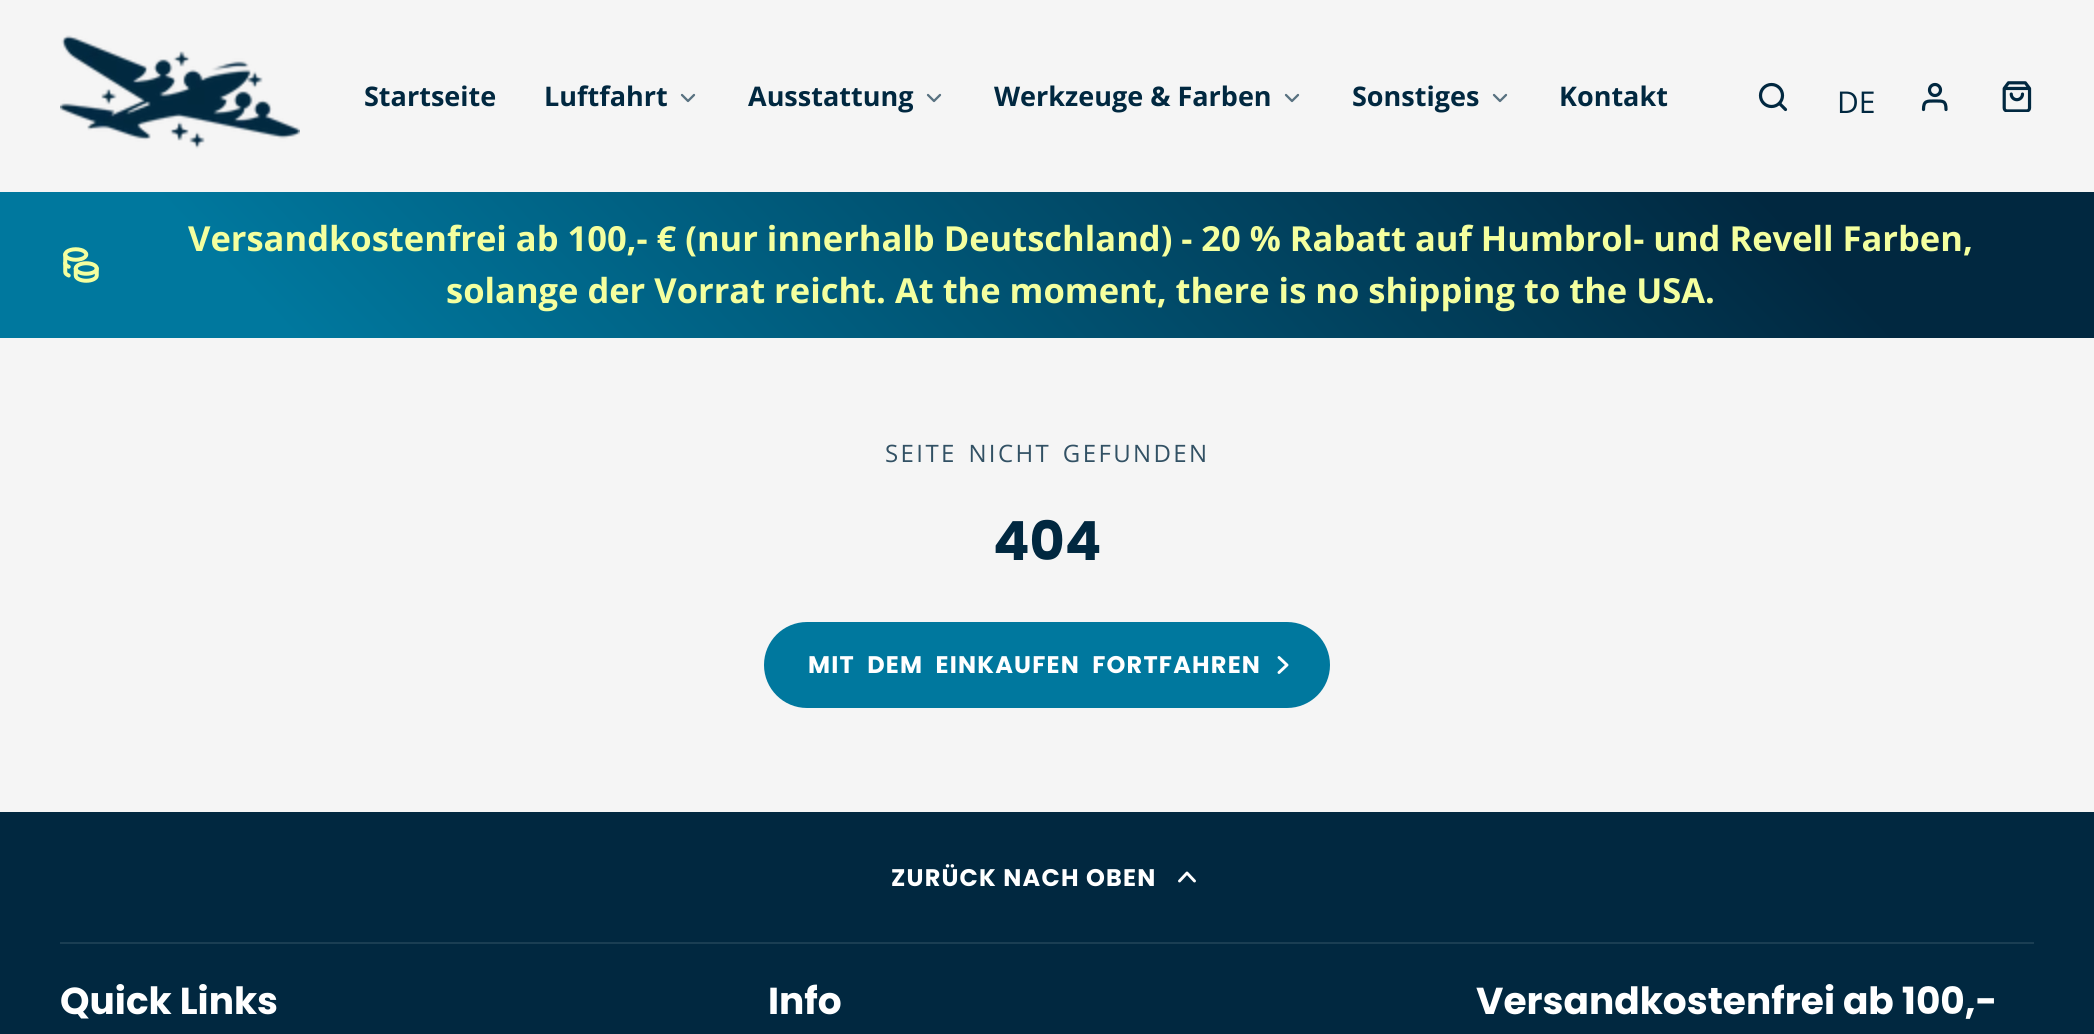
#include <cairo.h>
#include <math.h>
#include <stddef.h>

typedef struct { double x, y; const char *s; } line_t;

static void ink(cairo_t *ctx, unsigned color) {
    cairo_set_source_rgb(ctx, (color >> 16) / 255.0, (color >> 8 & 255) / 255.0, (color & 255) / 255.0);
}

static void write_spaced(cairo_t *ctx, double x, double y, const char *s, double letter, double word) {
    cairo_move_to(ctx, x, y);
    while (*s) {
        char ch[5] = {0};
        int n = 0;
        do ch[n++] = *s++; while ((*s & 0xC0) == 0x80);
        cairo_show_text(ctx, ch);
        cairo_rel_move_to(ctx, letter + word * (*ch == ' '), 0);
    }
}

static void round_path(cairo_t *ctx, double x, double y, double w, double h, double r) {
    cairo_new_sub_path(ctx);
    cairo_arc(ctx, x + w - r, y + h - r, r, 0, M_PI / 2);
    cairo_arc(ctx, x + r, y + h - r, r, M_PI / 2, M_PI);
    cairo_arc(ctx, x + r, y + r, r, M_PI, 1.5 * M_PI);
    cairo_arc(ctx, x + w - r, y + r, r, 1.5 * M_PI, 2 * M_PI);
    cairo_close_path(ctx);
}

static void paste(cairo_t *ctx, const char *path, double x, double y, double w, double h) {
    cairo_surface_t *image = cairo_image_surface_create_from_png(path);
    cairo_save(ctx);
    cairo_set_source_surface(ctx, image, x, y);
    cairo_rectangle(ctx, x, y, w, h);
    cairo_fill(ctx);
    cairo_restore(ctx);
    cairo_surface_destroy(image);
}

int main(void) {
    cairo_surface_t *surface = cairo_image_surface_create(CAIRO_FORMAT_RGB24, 2094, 1034);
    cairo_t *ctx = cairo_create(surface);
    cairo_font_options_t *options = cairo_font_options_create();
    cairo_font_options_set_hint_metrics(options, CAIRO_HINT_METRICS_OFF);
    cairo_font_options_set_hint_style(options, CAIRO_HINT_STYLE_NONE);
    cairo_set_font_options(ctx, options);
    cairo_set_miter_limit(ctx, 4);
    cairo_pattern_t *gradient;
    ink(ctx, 0xF5F5F5);
    cairo_paint(ctx);
    paste(ctx, "media/1.png", 60, 35, 240, 114);
    cairo_select_font_face(ctx, "Open Sans", CAIRO_FONT_SLANT_NORMAL, CAIRO_FONT_WEIGHT_BOLD);
    cairo_set_font_size(ctx, 27);
    ink(ctx, 0x012840);
    cairo_move_to(ctx, 364, 106);
    cairo_show_text(ctx, "Startseite");
    cairo_move_to(ctx, 544, 106);
    cairo_show_text(ctx, "Luftfahrt");
    cairo_new_path(ctx);
    cairo_move_to(ctx, 682, 95);
    cairo_line_to(ctx, 688, 101);
    cairo_line_to(ctx, 694, 95);
    ink(ctx, 0x597281);
    cairo_set_line_width(ctx, 2.3);
    cairo_set_line_cap(ctx, CAIRO_LINE_CAP_ROUND);
    cairo_set_line_join(ctx, CAIRO_LINE_JOIN_ROUND);
    cairo_stroke(ctx);
    ink(ctx, 0x012840);
    cairo_move_to(ctx, 748, 106);
    cairo_show_text(ctx, "Ausstattung");
    cairo_new_path(ctx);
    cairo_move_to(ctx, 928, 95);
    cairo_line_to(ctx, 934, 101);
    cairo_line_to(ctx, 940, 95);
    ink(ctx, 0x597281);
    cairo_stroke(ctx);
    ink(ctx, 0x012840);
    cairo_move_to(ctx, 994, 106);
    cairo_show_text(ctx, "Werkzeuge & Farben");
    cairo_new_path(ctx);
    cairo_move_to(ctx, 1286, 95);
    cairo_line_to(ctx, 1292, 101);
    cairo_line_to(ctx, 1298, 95);
    ink(ctx, 0x597281);
    cairo_stroke(ctx);
    ink(ctx, 0x012840);
    cairo_move_to(ctx, 1352, 106);
    cairo_show_text(ctx, "Sonstiges");
    cairo_new_path(ctx);
    cairo_move_to(ctx, 1494, 95);
    cairo_line_to(ctx, 1500, 101);
    cairo_line_to(ctx, 1506, 95);
    ink(ctx, 0x597281);
    cairo_stroke(ctx);
    ink(ctx, 0x012840);
    cairo_move_to(ctx, 1559, 106);
    cairo_show_text(ctx, "Kontakt");
    cairo_new_path(ctx);
    cairo_arc(ctx, 1771.5, 95.5, 11, 0, 2 * M_PI);
    cairo_set_line_width(ctx, 3.2);
    cairo_set_line_cap(ctx, CAIRO_LINE_CAP_BUTT);
    cairo_set_line_join(ctx, CAIRO_LINE_JOIN_MITER);
    cairo_stroke(ctx);
    cairo_new_path(ctx);
    cairo_move_to(ctx, 1785.5, 109.5);
    cairo_line_to(ctx, 1779.5, 103.5);
    cairo_set_line_cap(ctx, CAIRO_LINE_CAP_ROUND);
    cairo_set_line_join(ctx, CAIRO_LINE_JOIN_ROUND);
    cairo_stroke(ctx);
    cairo_select_font_face(ctx, "Open Sans", CAIRO_FONT_SLANT_NORMAL, CAIRO_FONT_WEIGHT_NORMAL);
    cairo_set_font_size(ctx, 30);
    cairo_move_to(ctx, 1837, 113);
    cairo_show_text(ctx, "DE");
    cairo_new_path(ctx);
    cairo_move_to(ctx, 1946, 109.5);
    cairo_curve_to(ctx, 1946, 100.5, 1943, 101, 1935, 101);
    cairo_curve_to(ctx, 1927, 101, 1923.5, 100.5, 1923.5, 109.5);
    cairo_stroke(ctx);
    cairo_arc(ctx, 1935, 90, 5.5, 0, 2 * M_PI);
    cairo_set_line_cap(ctx, CAIRO_LINE_CAP_BUTT);
    cairo_set_line_join(ctx, CAIRO_LINE_JOIN_MITER);
    cairo_stroke(ctx);
    paste(ctx, "media/2.png", 2002, 81, 30, 31);
    gradient = cairo_pattern_create_linear(469, 823, 1625, -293);
    cairo_pattern_add_color_stop_rgba(gradient, 0.13, 0, 0.471, 0.62, 1);
    cairo_pattern_add_color_stop_rgba(gradient, 0.85, 0.004, 0.157, 0.251, 1);
    cairo_set_source(ctx, gradient);
    cairo_pattern_destroy(gradient);
    cairo_rectangle(ctx, 0, 192, 2094, 146);
    cairo_fill(ctx);
    cairo_select_font_face(ctx, "Open Sans", CAIRO_FONT_SLANT_NORMAL, CAIRO_FONT_WEIGHT_BOLD);
    cairo_set_font_size(ctx, 34.5);
    ink(ctx, 0xF4FF9F);
    cairo_move_to(ctx, 188, 251);
    cairo_show_text(ctx, "Versandkostenfrei ab 100,- € (nur innerhalb Deutschland) - 20 % Rabatt auf Humbrol- und Revell Farben,");
    paste(ctx, "media/3.png", 63, 247, 36, 36);
    cairo_move_to(ctx, 446, 303);
    cairo_show_text(ctx, "solange der Vorrat reicht. At the moment, there is no shipping to the USA.");
    cairo_select_font_face(ctx, "Open Sans", CAIRO_FONT_SLANT_NORMAL, CAIRO_FONT_WEIGHT_NORMAL);
    cairo_set_font_size(ctx, 24);
    ink(ctx, 0x325164);
    write_spaced(ctx, 885, 462, "SEITE NICHT GEFUNDEN", 2.4, 3);
    cairo_select_font_face(ctx, "Poppins", CAIRO_FONT_SLANT_NORMAL, CAIRO_FONT_WEIGHT_BOLD);
    cairo_set_font_size(ctx, 54);
    ink(ctx, 0x012840);
    cairo_move_to(ctx, 993, 560);
    cairo_show_text(ctx, "404");
    ink(ctx, 0x00789E);
    round_path(ctx, 764, 622, 566, 86, 43);
    cairo_fill(ctx);
    cairo_set_font_size(ctx, 24);
    ink(ctx, 0xFFFFFF);
    write_spaced(ctx, 808, 673, "MIT DEM EINKAUFEN FORTFAHREN", 1.2, 6);
    cairo_new_path(ctx);
    cairo_move_to(ctx, 1279, 672.5);
    cairo_line_to(ctx, 1287, 665);
    cairo_line_to(ctx, 1279, 657.5);
    cairo_set_line_width(ctx, 2.9);
    cairo_set_line_cap(ctx, CAIRO_LINE_CAP_ROUND);
    cairo_set_line_join(ctx, CAIRO_LINE_JOIN_ROUND);
    cairo_stroke(ctx);
    ink(ctx, 0x012840);
    cairo_rectangle(ctx, 0, 812, 2094, 222);
    cairo_fill(ctx);
    ink(ctx, 0xFFFFFF);
    write_spaced(ctx, 891, 886, "ZURÜCK NACH OBEN", 1.2, 0);
    cairo_new_path(ctx);
    cairo_move_to(ctx, 1194.5, 881);
    cairo_line_to(ctx, 1187, 873);
    cairo_line_to(ctx, 1179.5, 881);
    cairo_stroke(ctx);
    ink(ctx, 0x1A3E53);
    cairo_rectangle(ctx, 60, 942, 1974, 2);
    cairo_fill(ctx);
    cairo_set_font_size(ctx, 37.5);
    ink(ctx, 0xFFFFFF);
    {
        static const line_t items[] = {
            {60, 1014, "Quick Links"},
            {768, 1014, "Info"},
            {1476, 1014, "Versandkostenfrei ab 100,-"},
        };
        for (size_t i = 0; i < sizeof items / sizeof *items; i++) {
            cairo_move_to(ctx, items[i].x, items[i].y);
            cairo_show_text(ctx, items[i].s);
        }
    }
    cairo_surface_write_to_png(surface, "image.png");
    cairo_font_options_destroy(options);
    cairo_destroy(ctx);
    cairo_surface_destroy(surface);
    return 0;
}
